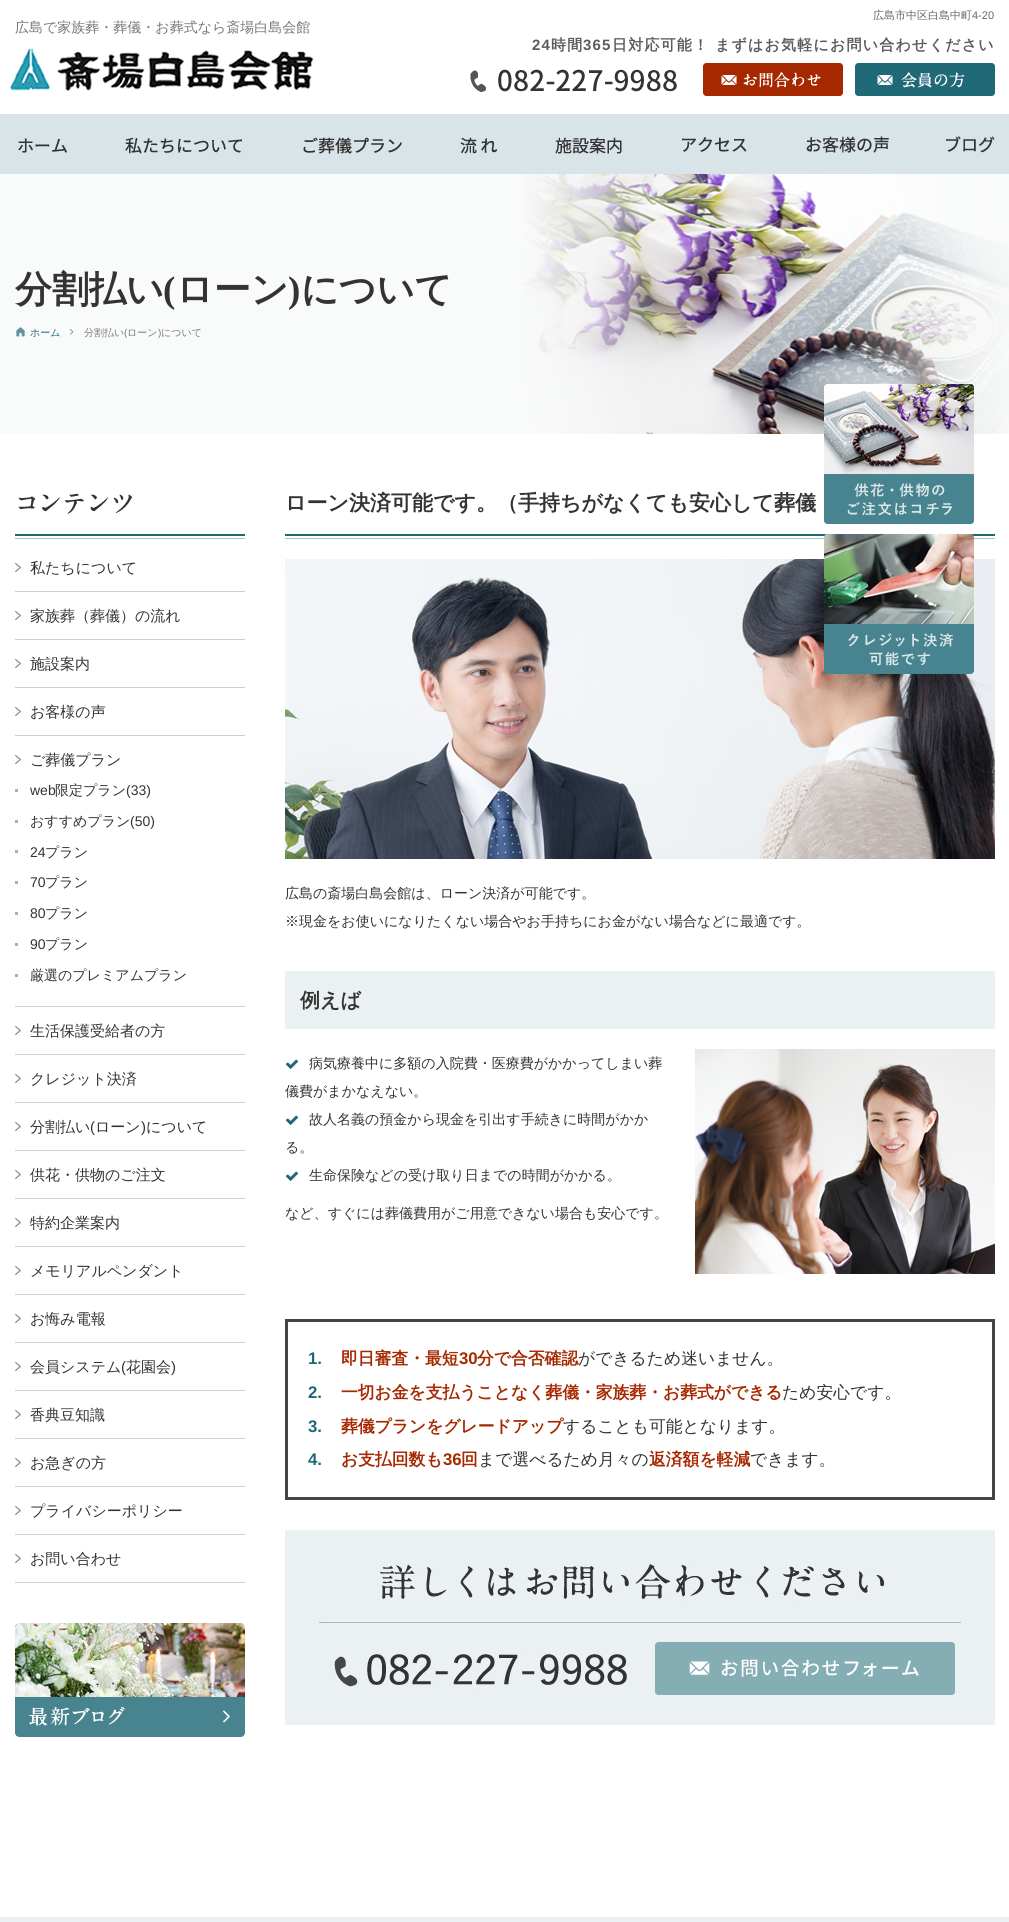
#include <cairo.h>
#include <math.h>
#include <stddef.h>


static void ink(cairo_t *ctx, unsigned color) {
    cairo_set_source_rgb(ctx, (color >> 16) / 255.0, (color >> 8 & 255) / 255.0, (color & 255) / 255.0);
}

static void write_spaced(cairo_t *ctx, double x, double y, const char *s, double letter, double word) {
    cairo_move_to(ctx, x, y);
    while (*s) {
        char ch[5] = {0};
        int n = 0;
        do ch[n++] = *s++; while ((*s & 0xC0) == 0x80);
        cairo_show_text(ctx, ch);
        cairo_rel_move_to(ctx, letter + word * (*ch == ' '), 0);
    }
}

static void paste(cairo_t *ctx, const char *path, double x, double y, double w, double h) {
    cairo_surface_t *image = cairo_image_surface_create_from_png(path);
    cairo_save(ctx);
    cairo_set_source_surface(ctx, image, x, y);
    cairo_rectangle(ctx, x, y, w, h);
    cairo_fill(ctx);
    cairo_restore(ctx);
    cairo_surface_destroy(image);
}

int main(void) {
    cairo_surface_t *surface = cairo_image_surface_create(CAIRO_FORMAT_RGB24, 1009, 1922);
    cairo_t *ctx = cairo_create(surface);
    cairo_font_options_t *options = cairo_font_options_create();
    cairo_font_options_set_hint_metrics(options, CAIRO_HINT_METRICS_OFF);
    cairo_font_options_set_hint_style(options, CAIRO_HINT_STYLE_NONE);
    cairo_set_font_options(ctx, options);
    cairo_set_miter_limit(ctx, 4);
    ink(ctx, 0xFFFFFF);
    cairo_paint(ctx);
    cairo_select_font_face(ctx, "WenQuanYi Zen Hei Medium", CAIRO_FONT_SLANT_NORMAL, CAIRO_FONT_WEIGHT_NORMAL);
    cairo_set_font_size(ctx, 11);
    ink(ctx, 0x666666);
    cairo_move_to(ctx, 873, 19);
    cairo_show_text(ctx, "広島市中区白島中町");
    cairo_select_font_face(ctx, "Liberation Sans", CAIRO_FONT_SLANT_NORMAL, CAIRO_FONT_WEIGHT_NORMAL);
    cairo_move_to(ctx, 972, 19);
    cairo_show_text(ctx, "4-20");
    cairo_select_font_face(ctx, "WenQuanYi Zen Hei Medium", CAIRO_FONT_SLANT_NORMAL, CAIRO_FONT_WEIGHT_NORMAL);
    cairo_set_font_size(ctx, 14);
    ink(ctx, 0x777777);
    cairo_move_to(ctx, 15, 32);
    cairo_show_text(ctx, "広島で家族葬・葬儀・お葬式なら斎場白島会館");
    cairo_select_font_face(ctx, "Liberation Sans", CAIRO_FONT_SLANT_NORMAL, CAIRO_FONT_WEIGHT_BOLD);
    cairo_set_font_size(ctx, 15);
    ink(ctx, 0x5C5C5C);
    write_spaced(ctx, 532, 50, "24", 1.2, 0);
    cairo_select_font_face(ctx, "WenQuanYi Zen Hei", CAIRO_FONT_SLANT_NORMAL, CAIRO_FONT_WEIGHT_BOLD);
    write_spaced(ctx, 551, 50, "時間", 1.2, 0);
    cairo_select_font_face(ctx, "Liberation Sans", CAIRO_FONT_SLANT_NORMAL, CAIRO_FONT_WEIGHT_BOLD);
    write_spaced(ctx, 583, 50, "365", 1.2, 0);
    cairo_select_font_face(ctx, "WenQuanYi Zen Hei", CAIRO_FONT_SLANT_NORMAL, CAIRO_FONT_WEIGHT_BOLD);
    write_spaced(ctx, 612, 50, "日対応可能！ まずはお気軽にお問い合わせください", 1.2, 0);
    paste(ctx, "media/1.png", 470, 69, 207, 23);
    paste(ctx, "media/2.png", 703, 63, 140, 33);
    paste(ctx, "media/3.png", 855, 63, 140, 33);
    paste(ctx, "media/4.png", 9, 48, 305, 44);
    ink(ctx, 0xD8E4E7);
    cairo_rectangle(ctx, 0, 114, 1009, 60);
    cairo_fill(ctx);
    paste(ctx, "media/5.png", 18, 138, 49, 15);
    paste(ctx, "media/6.png", 125, 137, 117, 17);
    paste(ctx, "media/7.png", 303, 137, 99, 17);
    paste(ctx, "media/8.png", 460, 137, 37, 17);
    paste(ctx, "media/9.png", 555, 137, 67, 17);
    paste(ctx, "media/10.png", 682, 137, 65, 15);
    paste(ctx, "media/11.png", 806, 136, 83, 17);
    paste(ctx, "media/12.png", 946, 136, 49, 17);
    ink(ctx, 0xF9FAFA);
    cairo_rectangle(ctx, 0, 174, 523, 260);
    cairo_fill(ctx);
    paste(ctx, "media/13.png", 523, 174, 486, 260);
    cairo_set_font_size(ctx, 37);
    ink(ctx, 0x333333);
    cairo_move_to(ctx, 15, 302);
    cairo_show_text(ctx, "分割払い");
    cairo_select_font_face(ctx, "Liberation Serif", CAIRO_FONT_SLANT_NORMAL, CAIRO_FONT_WEIGHT_BOLD);
    cairo_move_to(ctx, 163, 302);
    cairo_show_text(ctx, "(");
    cairo_select_font_face(ctx, "WenQuanYi Zen Hei", CAIRO_FONT_SLANT_NORMAL, CAIRO_FONT_WEIGHT_BOLD);
    cairo_move_to(ctx, 176, 302);
    cairo_show_text(ctx, "ローン");
    cairo_select_font_face(ctx, "Liberation Serif", CAIRO_FONT_SLANT_NORMAL, CAIRO_FONT_WEIGHT_BOLD);
    cairo_move_to(ctx, 288, 302);
    cairo_show_text(ctx, ")");
    cairo_select_font_face(ctx, "WenQuanYi Zen Hei", CAIRO_FONT_SLANT_NORMAL, CAIRO_FONT_WEIGHT_BOLD);
    cairo_move_to(ctx, 301, 302);
    cairo_show_text(ctx, "について");
    paste(ctx, "media/14.png", 16, 327, 9, 10);
    cairo_select_font_face(ctx, "WenQuanYi Zen Hei Medium", CAIRO_FONT_SLANT_NORMAL, CAIRO_FONT_WEIGHT_NORMAL);
    cairo_set_font_size(ctx, 10);
    ink(ctx, 0x1F6877);
    cairo_move_to(ctx, 30, 336);
    cairo_show_text(ctx, "ホーム");
    paste(ctx, "media/15.png", 70, 329, 4, 6);
    ink(ctx, 0x777777);
    cairo_move_to(ctx, 84, 336);
    cairo_show_text(ctx, "分割払い");
    cairo_select_font_face(ctx, "Liberation Sans", CAIRO_FONT_SLANT_NORMAL, CAIRO_FONT_WEIGHT_NORMAL);
    cairo_move_to(ctx, 124, 336);
    cairo_show_text(ctx, "(");
    cairo_select_font_face(ctx, "WenQuanYi Zen Hei Medium", CAIRO_FONT_SLANT_NORMAL, CAIRO_FONT_WEIGHT_NORMAL);
    cairo_move_to(ctx, 127, 336);
    cairo_show_text(ctx, "ローン");
    cairo_select_font_face(ctx, "Liberation Sans", CAIRO_FONT_SLANT_NORMAL, CAIRO_FONT_WEIGHT_NORMAL);
    cairo_move_to(ctx, 158, 336);
    cairo_show_text(ctx, ")");
    cairo_select_font_face(ctx, "WenQuanYi Zen Hei Medium", CAIRO_FONT_SLANT_NORMAL, CAIRO_FONT_WEIGHT_NORMAL);
    cairo_move_to(ctx, 161, 336);
    cairo_show_text(ctx, "について");
    paste(ctx, "media/16.png", 15, 493, 230, 46);
    ink(ctx, 0xCECECE);
    cairo_rectangle(ctx, 15, 591, 230, 1);
    cairo_fill(ctx);
    paste(ctx, "media/17.png", 15, 563, 6, 9);
    cairo_set_font_size(ctx, 15);
    ink(ctx, 0x333333);
    cairo_move_to(ctx, 30, 573);
    cairo_show_text(ctx, "私たちについて");
    ink(ctx, 0xCECECE);
    cairo_rectangle(ctx, 15, 639, 230, 1);
    cairo_fill(ctx);
    paste(ctx, "media/17.png", 15, 611, 6, 9);
    ink(ctx, 0x333333);
    cairo_move_to(ctx, 30, 621);
    cairo_show_text(ctx, "家族葬（葬儀）の流れ");
    ink(ctx, 0xCECECE);
    cairo_rectangle(ctx, 15, 687, 230, 1);
    cairo_fill(ctx);
    paste(ctx, "media/17.png", 15, 659, 6, 9);
    ink(ctx, 0x333333);
    cairo_move_to(ctx, 30, 669);
    cairo_show_text(ctx, "施設案内");
    ink(ctx, 0xCECECE);
    cairo_rectangle(ctx, 15, 735, 230, 1);
    cairo_fill(ctx);
    paste(ctx, "media/17.png", 15, 707, 6, 9);
    ink(ctx, 0x333333);
    cairo_move_to(ctx, 30, 717);
    cairo_show_text(ctx, "お客様の声");
    ink(ctx, 0xCECECE);
    cairo_rectangle(ctx, 15, 1006, 230, 1);
    cairo_fill(ctx);
    paste(ctx, "media/17.png", 15, 755, 6, 9);
    ink(ctx, 0x333333);
    cairo_move_to(ctx, 30, 765);
    cairo_show_text(ctx, "ご葬儀プラン");
    ink(ctx, 0xADADAD);
    cairo_rectangle(ctx, 15, 789, 3, 3);
    cairo_fill(ctx);
    cairo_select_font_face(ctx, "Liberation Sans", CAIRO_FONT_SLANT_NORMAL, CAIRO_FONT_WEIGHT_NORMAL);
    cairo_set_font_size(ctx, 14);
    ink(ctx, 0x333333);
    cairo_move_to(ctx, 30, 795);
    cairo_show_text(ctx, "web");
    cairo_select_font_face(ctx, "WenQuanYi Zen Hei Medium", CAIRO_FONT_SLANT_NORMAL, CAIRO_FONT_WEIGHT_NORMAL);
    cairo_move_to(ctx, 55, 795);
    cairo_show_text(ctx, "限定プラン");
    cairo_select_font_face(ctx, "Liberation Sans", CAIRO_FONT_SLANT_NORMAL, CAIRO_FONT_WEIGHT_NORMAL);
    cairo_move_to(ctx, 126, 795);
    cairo_show_text(ctx, "(33)");
    ink(ctx, 0xADADAD);
    cairo_rectangle(ctx, 15, 820, 3, 3);
    cairo_fill(ctx);
    cairo_select_font_face(ctx, "WenQuanYi Zen Hei Medium", CAIRO_FONT_SLANT_NORMAL, CAIRO_FONT_WEIGHT_NORMAL);
    ink(ctx, 0x333333);
    cairo_move_to(ctx, 30, 826);
    cairo_show_text(ctx, "おすすめプラン");
    cairo_select_font_face(ctx, "Liberation Sans", CAIRO_FONT_SLANT_NORMAL, CAIRO_FONT_WEIGHT_NORMAL);
    cairo_move_to(ctx, 130, 826);
    cairo_show_text(ctx, "(50)");
    ink(ctx, 0xADADAD);
    cairo_rectangle(ctx, 15, 850, 3, 3);
    cairo_fill(ctx);
    ink(ctx, 0x333333);
    cairo_move_to(ctx, 30, 857);
    cairo_show_text(ctx, "24");
    cairo_select_font_face(ctx, "WenQuanYi Zen Hei Medium", CAIRO_FONT_SLANT_NORMAL, CAIRO_FONT_WEIGHT_NORMAL);
    cairo_move_to(ctx, 45, 857);
    cairo_show_text(ctx, "プラン");
    ink(ctx, 0xADADAD);
    cairo_rectangle(ctx, 15, 881, 3, 3);
    cairo_fill(ctx);
    cairo_select_font_face(ctx, "Liberation Sans", CAIRO_FONT_SLANT_NORMAL, CAIRO_FONT_WEIGHT_NORMAL);
    ink(ctx, 0x333333);
    cairo_move_to(ctx, 30, 887);
    cairo_show_text(ctx, "70");
    cairo_select_font_face(ctx, "WenQuanYi Zen Hei Medium", CAIRO_FONT_SLANT_NORMAL, CAIRO_FONT_WEIGHT_NORMAL);
    cairo_move_to(ctx, 45, 887);
    cairo_show_text(ctx, "プラン");
    ink(ctx, 0xADADAD);
    cairo_rectangle(ctx, 15, 912, 3, 3);
    cairo_fill(ctx);
    cairo_select_font_face(ctx, "Liberation Sans", CAIRO_FONT_SLANT_NORMAL, CAIRO_FONT_WEIGHT_NORMAL);
    ink(ctx, 0x333333);
    cairo_move_to(ctx, 30, 918);
    cairo_show_text(ctx, "80");
    cairo_select_font_face(ctx, "WenQuanYi Zen Hei Medium", CAIRO_FONT_SLANT_NORMAL, CAIRO_FONT_WEIGHT_NORMAL);
    cairo_move_to(ctx, 45, 918);
    cairo_show_text(ctx, "プラン");
    ink(ctx, 0xADADAD);
    cairo_rectangle(ctx, 15, 943, 3, 3);
    cairo_fill(ctx);
    cairo_select_font_face(ctx, "Liberation Sans", CAIRO_FONT_SLANT_NORMAL, CAIRO_FONT_WEIGHT_NORMAL);
    ink(ctx, 0x333333);
    cairo_move_to(ctx, 30, 949);
    cairo_show_text(ctx, "90");
    cairo_select_font_face(ctx, "WenQuanYi Zen Hei Medium", CAIRO_FONT_SLANT_NORMAL, CAIRO_FONT_WEIGHT_NORMAL);
    cairo_move_to(ctx, 45, 949);
    cairo_show_text(ctx, "プラン");
    ink(ctx, 0xADADAD);
    cairo_rectangle(ctx, 15, 974, 3, 3);
    cairo_fill(ctx);
    ink(ctx, 0x333333);
    cairo_move_to(ctx, 30, 980);
    cairo_show_text(ctx, "厳選のプレミアムプラン");
    ink(ctx, 0xCECECE);
    cairo_rectangle(ctx, 15, 1054, 230, 1);
    cairo_fill(ctx);
    paste(ctx, "media/17.png", 15, 1026, 6, 9);
    cairo_set_font_size(ctx, 15);
    ink(ctx, 0x333333);
    cairo_move_to(ctx, 30, 1036);
    cairo_show_text(ctx, "生活保護受給者の方");
    ink(ctx, 0xCECECE);
    cairo_rectangle(ctx, 15, 1102, 230, 1);
    cairo_fill(ctx);
    paste(ctx, "media/17.png", 15, 1074, 6, 9);
    ink(ctx, 0x333333);
    cairo_move_to(ctx, 30, 1084);
    cairo_show_text(ctx, "クレジット決済");
    ink(ctx, 0xCECECE);
    cairo_rectangle(ctx, 15, 1150, 230, 1);
    cairo_fill(ctx);
    paste(ctx, "media/17.png", 15, 1122, 6, 9);
    ink(ctx, 0x333333);
    cairo_move_to(ctx, 30, 1132);
    cairo_show_text(ctx, "分割払い");
    cairo_select_font_face(ctx, "Liberation Sans", CAIRO_FONT_SLANT_NORMAL, CAIRO_FONT_WEIGHT_NORMAL);
    cairo_move_to(ctx, 90, 1132);
    cairo_show_text(ctx, "(");
    cairo_select_font_face(ctx, "WenQuanYi Zen Hei Medium", CAIRO_FONT_SLANT_NORMAL, CAIRO_FONT_WEIGHT_NORMAL);
    cairo_move_to(ctx, 95, 1132);
    cairo_show_text(ctx, "ローン");
    cairo_select_font_face(ctx, "Liberation Sans", CAIRO_FONT_SLANT_NORMAL, CAIRO_FONT_WEIGHT_NORMAL);
    cairo_move_to(ctx, 141, 1132);
    cairo_show_text(ctx, ")");
    cairo_select_font_face(ctx, "WenQuanYi Zen Hei Medium", CAIRO_FONT_SLANT_NORMAL, CAIRO_FONT_WEIGHT_NORMAL);
    cairo_move_to(ctx, 146, 1132);
    cairo_show_text(ctx, "について");
    ink(ctx, 0xCECECE);
    cairo_rectangle(ctx, 15, 1198, 230, 1);
    cairo_fill(ctx);
    paste(ctx, "media/17.png", 15, 1170, 6, 9);
    ink(ctx, 0x333333);
    cairo_move_to(ctx, 30, 1180);
    cairo_show_text(ctx, "供花・供物のご注文");
    ink(ctx, 0xCECECE);
    cairo_rectangle(ctx, 15, 1246, 230, 1);
    cairo_fill(ctx);
    paste(ctx, "media/17.png", 15, 1218, 6, 9);
    ink(ctx, 0x333333);
    cairo_move_to(ctx, 30, 1228);
    cairo_show_text(ctx, "特約企業案内");
    ink(ctx, 0xCECECE);
    cairo_rectangle(ctx, 15, 1294, 230, 1);
    cairo_fill(ctx);
    paste(ctx, "media/17.png", 15, 1266, 6, 9);
    ink(ctx, 0x333333);
    cairo_move_to(ctx, 30, 1276);
    cairo_show_text(ctx, "メモリアルペンダント");
    ink(ctx, 0xCECECE);
    cairo_rectangle(ctx, 15, 1342, 230, 1);
    cairo_fill(ctx);
    paste(ctx, "media/17.png", 15, 1314, 6, 9);
    ink(ctx, 0x333333);
    cairo_move_to(ctx, 30, 1324);
    cairo_show_text(ctx, "お悔み電報");
    ink(ctx, 0xCECECE);
    cairo_rectangle(ctx, 15, 1390, 230, 1);
    cairo_fill(ctx);
    paste(ctx, "media/17.png", 15, 1362, 6, 9);
    ink(ctx, 0x333333);
    cairo_move_to(ctx, 30, 1372);
    cairo_show_text(ctx, "会員システム");
    cairo_select_font_face(ctx, "Liberation Sans", CAIRO_FONT_SLANT_NORMAL, CAIRO_FONT_WEIGHT_NORMAL);
    cairo_move_to(ctx, 121, 1372);
    cairo_show_text(ctx, "(");
    cairo_select_font_face(ctx, "WenQuanYi Zen Hei Medium", CAIRO_FONT_SLANT_NORMAL, CAIRO_FONT_WEIGHT_NORMAL);
    cairo_move_to(ctx, 126, 1372);
    cairo_show_text(ctx, "花園会");
    cairo_select_font_face(ctx, "Liberation Sans", CAIRO_FONT_SLANT_NORMAL, CAIRO_FONT_WEIGHT_NORMAL);
    cairo_move_to(ctx, 171, 1372);
    cairo_show_text(ctx, ")");
    ink(ctx, 0xCECECE);
    cairo_rectangle(ctx, 15, 1438, 230, 1);
    cairo_fill(ctx);
    paste(ctx, "media/17.png", 15, 1410, 6, 9);
    cairo_select_font_face(ctx, "WenQuanYi Zen Hei Medium", CAIRO_FONT_SLANT_NORMAL, CAIRO_FONT_WEIGHT_NORMAL);
    ink(ctx, 0x333333);
    cairo_move_to(ctx, 30, 1420);
    cairo_show_text(ctx, "香典豆知識");
    ink(ctx, 0xCECECE);
    cairo_rectangle(ctx, 15, 1486, 230, 1);
    cairo_fill(ctx);
    paste(ctx, "media/17.png", 15, 1458, 6, 9);
    ink(ctx, 0x333333);
    cairo_move_to(ctx, 30, 1468);
    cairo_show_text(ctx, "お急ぎの方");
    ink(ctx, 0xCECECE);
    cairo_rectangle(ctx, 15, 1534, 230, 1);
    cairo_fill(ctx);
    paste(ctx, "media/17.png", 15, 1506, 6, 9);
    ink(ctx, 0x333333);
    cairo_move_to(ctx, 30, 1516);
    cairo_show_text(ctx, "プライバシーポリシー");
    ink(ctx, 0xCECECE);
    cairo_rectangle(ctx, 15, 1582, 230, 1);
    cairo_fill(ctx);
    paste(ctx, "media/17.png", 15, 1554, 6, 9);
    ink(ctx, 0x333333);
    cairo_move_to(ctx, 30, 1564);
    cairo_show_text(ctx, "お問い合わせ");
    paste(ctx, "media/18.png", 15, 1623, 230, 114);
    paste(ctx, "media/19.png", 285, 534, 710, 5);
    cairo_select_font_face(ctx, "WenQuanYi Zen Hei", CAIRO_FONT_SLANT_NORMAL, CAIRO_FONT_WEIGHT_BOLD);
    cairo_set_font_size(ctx, 21);
    cairo_move_to(ctx, 285, 510);
    cairo_show_text(ctx, "ローン決済可能です。（手持ちがなくても安心して葬儀");
    paste(ctx, "media/20.png", 285, 559, 710, 300);
    cairo_select_font_face(ctx, "WenQuanYi Zen Hei Medium", CAIRO_FONT_SLANT_NORMAL, CAIRO_FONT_WEIGHT_NORMAL);
    cairo_set_font_size(ctx, 14);
    cairo_move_to(ctx, 285, 898);
    cairo_show_text(ctx, "広島の斎場白島会館は、ローン決済が可能です。");
    cairo_move_to(ctx, 285, 926);
    cairo_show_text(ctx, "※現金をお使いになりたくない場合やお手持ちにお金がない場合などに最適です。");
    ink(ctx, 0xEBF1F3);
    cairo_rectangle(ctx, 285, 971, 710, 58);
    cairo_fill(ctx);
    cairo_select_font_face(ctx, "WenQuanYi Zen Hei", CAIRO_FONT_SLANT_NORMAL, CAIRO_FONT_WEIGHT_BOLD);
    cairo_set_font_size(ctx, 20);
    ink(ctx, 0x333333);
    cairo_move_to(ctx, 300, 1007);
    cairo_show_text(ctx, "例えば");
    paste(ctx, "media/21.png", 286, 1059, 12, 10);
    cairo_select_font_face(ctx, "WenQuanYi Zen Hei Medium", CAIRO_FONT_SLANT_NORMAL, CAIRO_FONT_WEIGHT_NORMAL);
    cairo_set_font_size(ctx, 14);
    cairo_move_to(ctx, 309, 1068);
    cairo_show_text(ctx, "病気療養中に多額の入院費・医療費がかかってしまい葬");
    cairo_move_to(ctx, 285, 1096);
    cairo_show_text(ctx, "儀費がまかなえない。");
    paste(ctx, "media/21.png", 286, 1115, 12, 10);
    cairo_move_to(ctx, 309, 1124);
    cairo_show_text(ctx, "故人名義の預金から現金を引出す手続きに時間がかか");
    cairo_move_to(ctx, 285, 1152);
    cairo_show_text(ctx, "る。");
    paste(ctx, "media/21.png", 286, 1171, 12, 10);
    cairo_move_to(ctx, 309, 1180);
    cairo_show_text(ctx, "生命保険などの受け取り日までの時間がかかる。");
    cairo_move_to(ctx, 285, 1218);
    cairo_show_text(ctx, "など、すぐには葬儀費用がご用意できない場合も安心です。");
    paste(ctx, "media/22.png", 695, 1049, 300, 225);
    cairo_rectangle(ctx, 286.5, 1320.5, 707, 178);
    ink(ctx, 0x444444);
    cairo_set_line_width(ctx, 3);
    cairo_stroke(ctx);
    cairo_select_font_face(ctx, "Liberation Sans", CAIRO_FONT_SLANT_NORMAL, CAIRO_FONT_WEIGHT_BOLD);
    cairo_set_font_size(ctx, 16.8);
    ink(ctx, 0x1F6877);
    cairo_move_to(ctx, 308, 1364);
    cairo_show_text(ctx, "1.");
    cairo_select_font_face(ctx, "WenQuanYi Zen Hei", CAIRO_FONT_SLANT_NORMAL, CAIRO_FONT_WEIGHT_BOLD);
    ink(ctx, 0xA62800);
    cairo_move_to(ctx, 341, 1364);
    cairo_show_text(ctx, "即日審査・最短");
    cairo_select_font_face(ctx, "Liberation Sans", CAIRO_FONT_SLANT_NORMAL, CAIRO_FONT_WEIGHT_BOLD);
    cairo_move_to(ctx, 459, 1364);
    cairo_show_text(ctx, "30");
    cairo_select_font_face(ctx, "WenQuanYi Zen Hei", CAIRO_FONT_SLANT_NORMAL, CAIRO_FONT_WEIGHT_BOLD);
    cairo_move_to(ctx, 477, 1364);
    cairo_show_text(ctx, "分で合否確認");
    cairo_select_font_face(ctx, "WenQuanYi Zen Hei Medium", CAIRO_FONT_SLANT_NORMAL, CAIRO_FONT_WEIGHT_NORMAL);
    ink(ctx, 0x333333);
    cairo_move_to(ctx, 578, 1364);
    cairo_show_text(ctx, "ができるため迷いません。");
    cairo_select_font_face(ctx, "Liberation Sans", CAIRO_FONT_SLANT_NORMAL, CAIRO_FONT_WEIGHT_BOLD);
    ink(ctx, 0x1F6877);
    cairo_move_to(ctx, 308, 1398);
    cairo_show_text(ctx, "2.");
    cairo_select_font_face(ctx, "WenQuanYi Zen Hei", CAIRO_FONT_SLANT_NORMAL, CAIRO_FONT_WEIGHT_BOLD);
    ink(ctx, 0xA62800);
    cairo_move_to(ctx, 341, 1398);
    cairo_show_text(ctx, "一切お金を支払うことなく葬儀・家族葬・お葬式ができる");
    cairo_select_font_face(ctx, "WenQuanYi Zen Hei Medium", CAIRO_FONT_SLANT_NORMAL, CAIRO_FONT_WEIGHT_NORMAL);
    ink(ctx, 0x333333);
    cairo_move_to(ctx, 782, 1398);
    cairo_show_text(ctx, "ため安心です。");
    cairo_select_font_face(ctx, "Liberation Sans", CAIRO_FONT_SLANT_NORMAL, CAIRO_FONT_WEIGHT_BOLD);
    ink(ctx, 0x1F6877);
    cairo_move_to(ctx, 308, 1432);
    cairo_show_text(ctx, "3.");
    cairo_select_font_face(ctx, "WenQuanYi Zen Hei", CAIRO_FONT_SLANT_NORMAL, CAIRO_FONT_WEIGHT_BOLD);
    ink(ctx, 0xA62800);
    cairo_move_to(ctx, 341, 1432);
    cairo_show_text(ctx, "葬儀プランをグレードアップ");
    cairo_select_font_face(ctx, "WenQuanYi Zen Hei Medium", CAIRO_FONT_SLANT_NORMAL, CAIRO_FONT_WEIGHT_NORMAL);
    ink(ctx, 0x333333);
    cairo_move_to(ctx, 563, 1432);
    cairo_show_text(ctx, "することも可能となります。");
    cairo_select_font_face(ctx, "Liberation Sans", CAIRO_FONT_SLANT_NORMAL, CAIRO_FONT_WEIGHT_BOLD);
    ink(ctx, 0x1F6877);
    cairo_move_to(ctx, 308, 1465);
    cairo_show_text(ctx, "4.");
    cairo_select_font_face(ctx, "WenQuanYi Zen Hei", CAIRO_FONT_SLANT_NORMAL, CAIRO_FONT_WEIGHT_BOLD);
    ink(ctx, 0xA62800);
    cairo_move_to(ctx, 341, 1465);
    cairo_show_text(ctx, "お支払回数も");
    cairo_select_font_face(ctx, "Liberation Sans", CAIRO_FONT_SLANT_NORMAL, CAIRO_FONT_WEIGHT_BOLD);
    cairo_move_to(ctx, 443, 1465);
    cairo_show_text(ctx, "36");
    cairo_select_font_face(ctx, "WenQuanYi Zen Hei", CAIRO_FONT_SLANT_NORMAL, CAIRO_FONT_WEIGHT_BOLD);
    cairo_move_to(ctx, 461, 1465);
    cairo_show_text(ctx, "回");
    cairo_select_font_face(ctx, "WenQuanYi Zen Hei Medium", CAIRO_FONT_SLANT_NORMAL, CAIRO_FONT_WEIGHT_NORMAL);
    ink(ctx, 0x333333);
    cairo_move_to(ctx, 478, 1465);
    cairo_show_text(ctx, "まで選べるため月々の");
    cairo_select_font_face(ctx, "WenQuanYi Zen Hei", CAIRO_FONT_SLANT_NORMAL, CAIRO_FONT_WEIGHT_BOLD);
    ink(ctx, 0xA62800);
    cairo_move_to(ctx, 649, 1465);
    cairo_show_text(ctx, "返済額を軽減");
    cairo_select_font_face(ctx, "WenQuanYi Zen Hei Medium", CAIRO_FONT_SLANT_NORMAL, CAIRO_FONT_WEIGHT_NORMAL);
    ink(ctx, 0x333333);
    cairo_move_to(ctx, 750, 1465);
    cairo_show_text(ctx, "できます。");
    paste(ctx, "media/23.png", 285, 1530, 710, 195);
    paste(ctx, "media/24.png", 824, 384, 150, 140);
    paste(ctx, "media/25.png", 824, 534, 150, 140);
    ink(ctx, 0xEBF1F3);
    cairo_rectangle(ctx, 0, 1917, 1009, 5);
    cairo_fill(ctx);
    cairo_surface_write_to_png(surface, "image.png");
    cairo_font_options_destroy(options);
    cairo_destroy(ctx);
    cairo_surface_destroy(surface);
    return 0;
}
